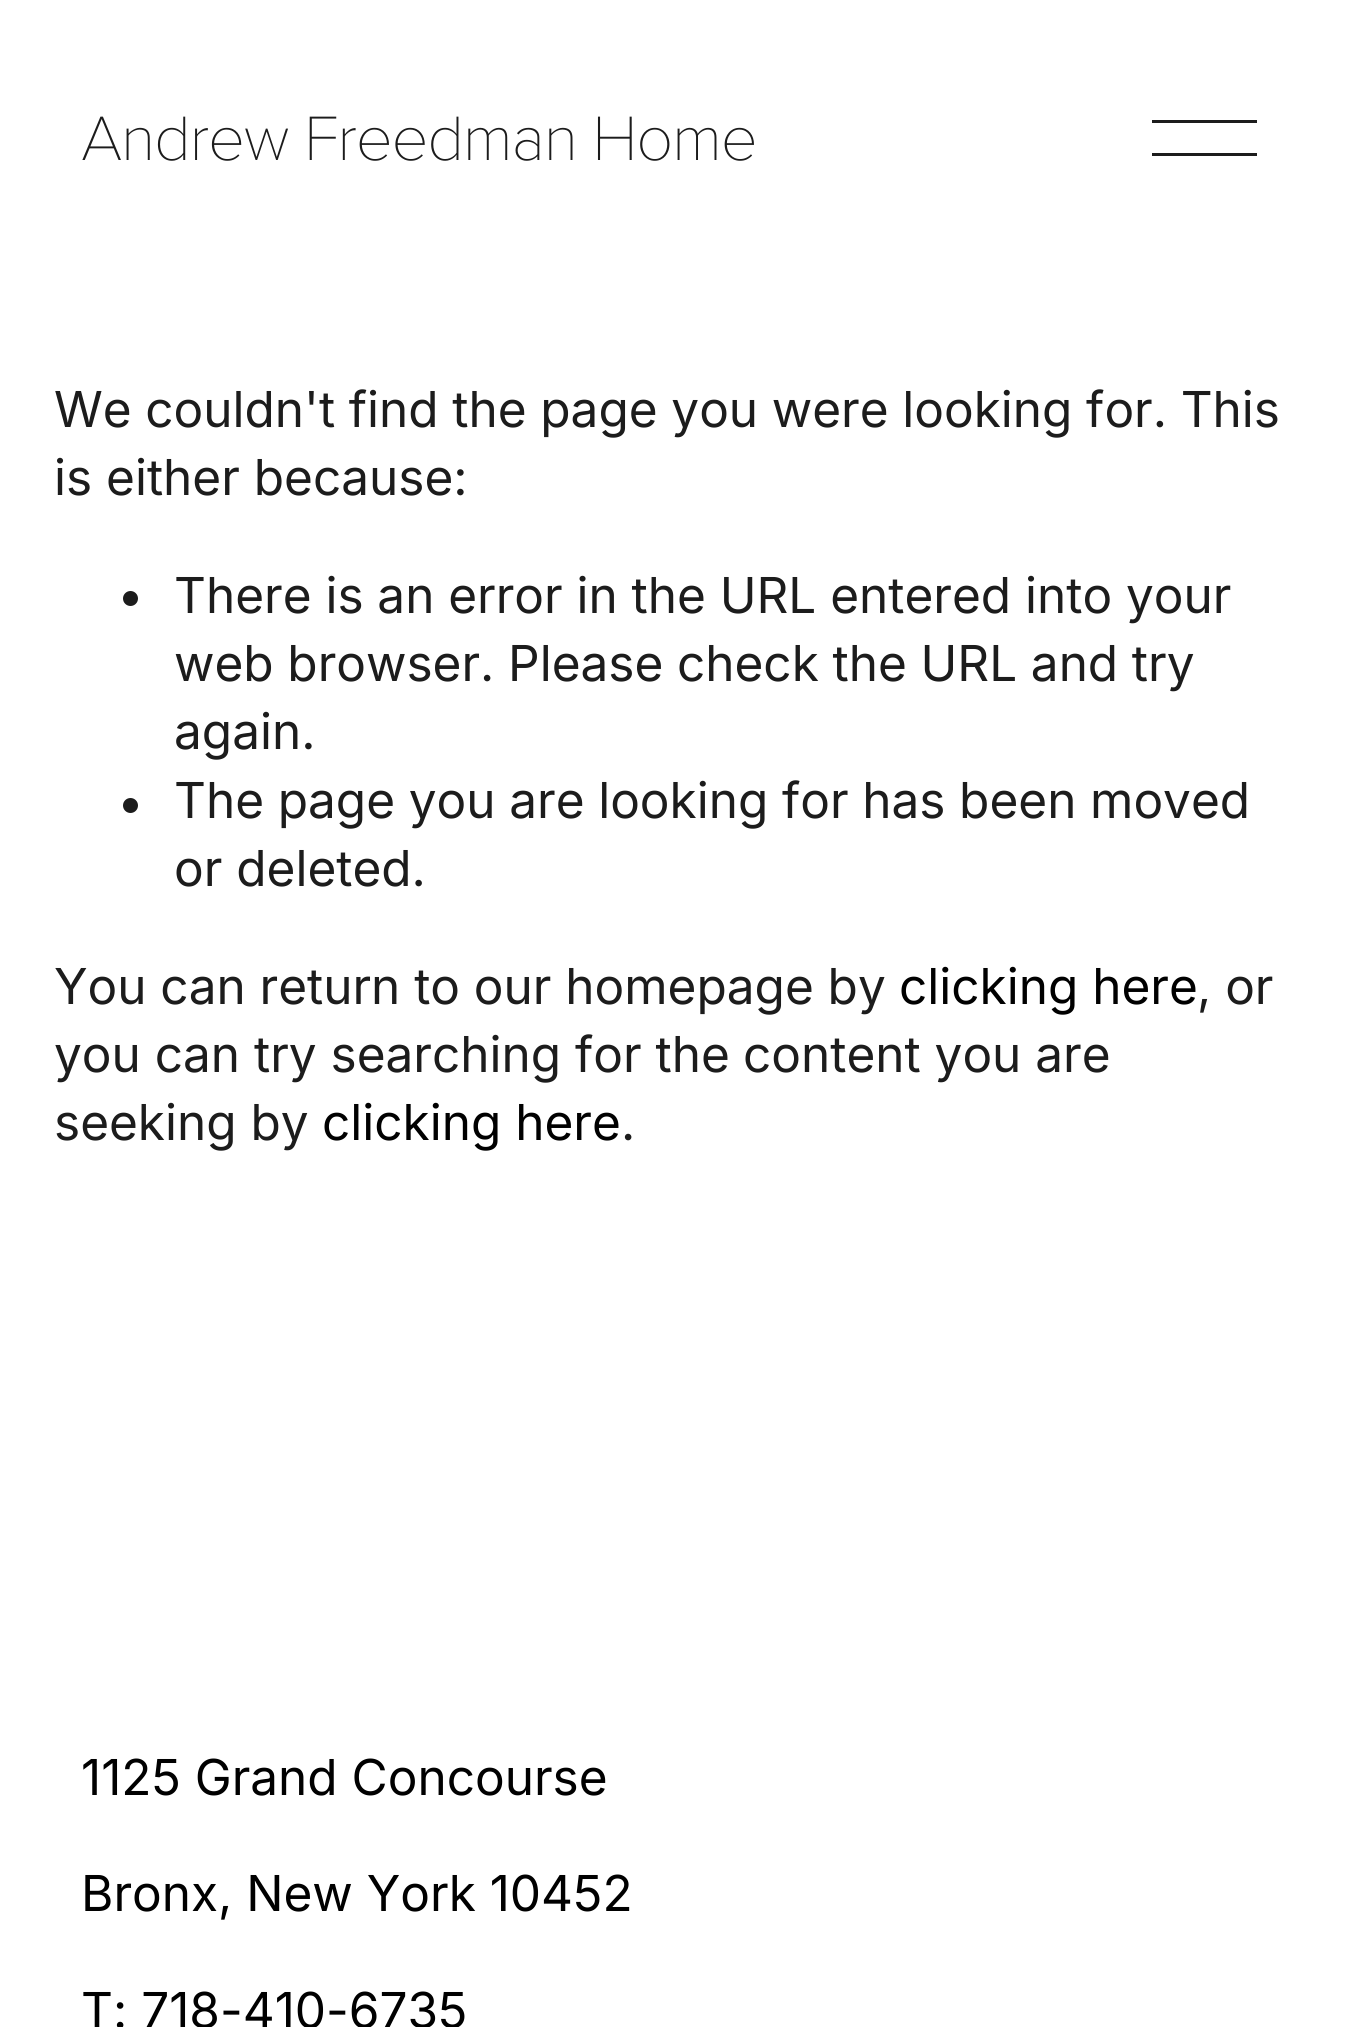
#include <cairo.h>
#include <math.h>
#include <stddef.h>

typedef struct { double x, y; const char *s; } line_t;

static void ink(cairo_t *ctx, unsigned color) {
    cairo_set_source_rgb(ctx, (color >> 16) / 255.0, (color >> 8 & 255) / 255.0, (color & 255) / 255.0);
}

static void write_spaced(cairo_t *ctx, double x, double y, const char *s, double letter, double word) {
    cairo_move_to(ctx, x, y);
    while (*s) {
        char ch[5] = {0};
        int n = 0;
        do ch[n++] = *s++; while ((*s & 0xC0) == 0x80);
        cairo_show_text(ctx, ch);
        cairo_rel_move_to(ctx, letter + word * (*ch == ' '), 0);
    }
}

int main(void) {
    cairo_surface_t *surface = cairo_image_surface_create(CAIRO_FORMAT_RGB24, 1356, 2027);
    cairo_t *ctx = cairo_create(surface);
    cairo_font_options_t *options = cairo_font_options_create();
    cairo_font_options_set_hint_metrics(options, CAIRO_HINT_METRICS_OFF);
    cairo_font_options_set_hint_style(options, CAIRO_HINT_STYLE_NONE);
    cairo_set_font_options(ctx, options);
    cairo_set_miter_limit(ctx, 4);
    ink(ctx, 0xFFFFFF);
    cairo_paint(ctx);
    cairo_select_font_face(ctx, "Proxima Nova Thin", CAIRO_FONT_SLANT_NORMAL, CAIRO_FONT_WEIGHT_NORMAL);
    cairo_set_font_size(ctx, 65);
    ink(ctx, 0x1C1C1C);
    write_spaced(ctx, 81, 160, "Andrew Freedman Home", -1.3, 0);
    cairo_rectangle(ctx, 1152, 120, 105, 3);
    cairo_fill(ctx);
    cairo_rectangle(ctx, 1152, 153, 105, 3);
    cairo_fill(ctx);
    cairo_select_font_face(ctx, "Inter", CAIRO_FONT_SLANT_NORMAL, CAIRO_FONT_WEIGHT_NORMAL);
    cairo_set_font_size(ctx, 49.5);
    write_spaced(ctx, 54, 427, "We couldn't find the page you were looking for. This", 0, -0.25);
    cairo_move_to(ctx, 54, 495);
    cairo_show_text(ctx, "is either because:");
    cairo_new_path(ctx);
    cairo_arc(ctx, 130.5, 598.5, 7.5, 0, 2 * M_PI);
    cairo_fill(ctx);
    write_spaced(ctx, 174, 613, "There is an error in the URL entered into your", 0, -0.1);
    write_spaced(ctx, 174, 681, "web browser. Please check the URL and try", 0, -0.25);
    cairo_move_to(ctx, 174, 749);
    cairo_show_text(ctx, "again.");
    cairo_new_path(ctx);
    cairo_arc(ctx, 130.5, 805.5, 7.5, 0, 2 * M_PI);
    cairo_fill(ctx);
    write_spaced(ctx, 174, 818, "The page you are looking for has been moved", 0, -0.25);
    cairo_move_to(ctx, 174, 886);
    cairo_show_text(ctx, "or deleted.");
    write_spaced(ctx, 54, 1004, "You can return to our homepage by", 0, -0.1);
    ink(ctx, 0x000000);
    cairo_move_to(ctx, 899, 1004);
    cairo_show_text(ctx, "clicking here");
    ink(ctx, 0x1C1C1C);
    {
        static const line_t items[] = {
            {1197, 1004, ", or"},
            {54, 1072, "you can try searching for the"},
            {743, 1072, "content you are"},
            {54, 1140, "seeking by"},
        };
        for (size_t i = 0; i < sizeof items / sizeof *items; i++) {
            cairo_move_to(ctx, items[i].x, items[i].y);
            cairo_show_text(ctx, items[i].s);
        }
    }
    ink(ctx, 0x000000);
    cairo_move_to(ctx, 322, 1140);
    cairo_show_text(ctx, "clicking here");
    ink(ctx, 0x1C1C1C);
    cairo_move_to(ctx, 621, 1140);
    cairo_show_text(ctx, ".");
    ink(ctx, 0x000000);
    {
        static const line_t items[] = {
            {81, 1795, "1125 Grand Concourse"},
            {81, 1911, "Bronx, New York 10452"},
            {81, 2028, "T: 718-410-6735"},
        };
        for (size_t i = 0; i < sizeof items / sizeof *items; i++) {
            cairo_move_to(ctx, items[i].x, items[i].y);
            cairo_show_text(ctx, items[i].s);
        }
    }
    cairo_surface_write_to_png(surface, "image.png");
    cairo_font_options_destroy(options);
    cairo_destroy(ctx);
    cairo_surface_destroy(surface);
    return 0;
}
